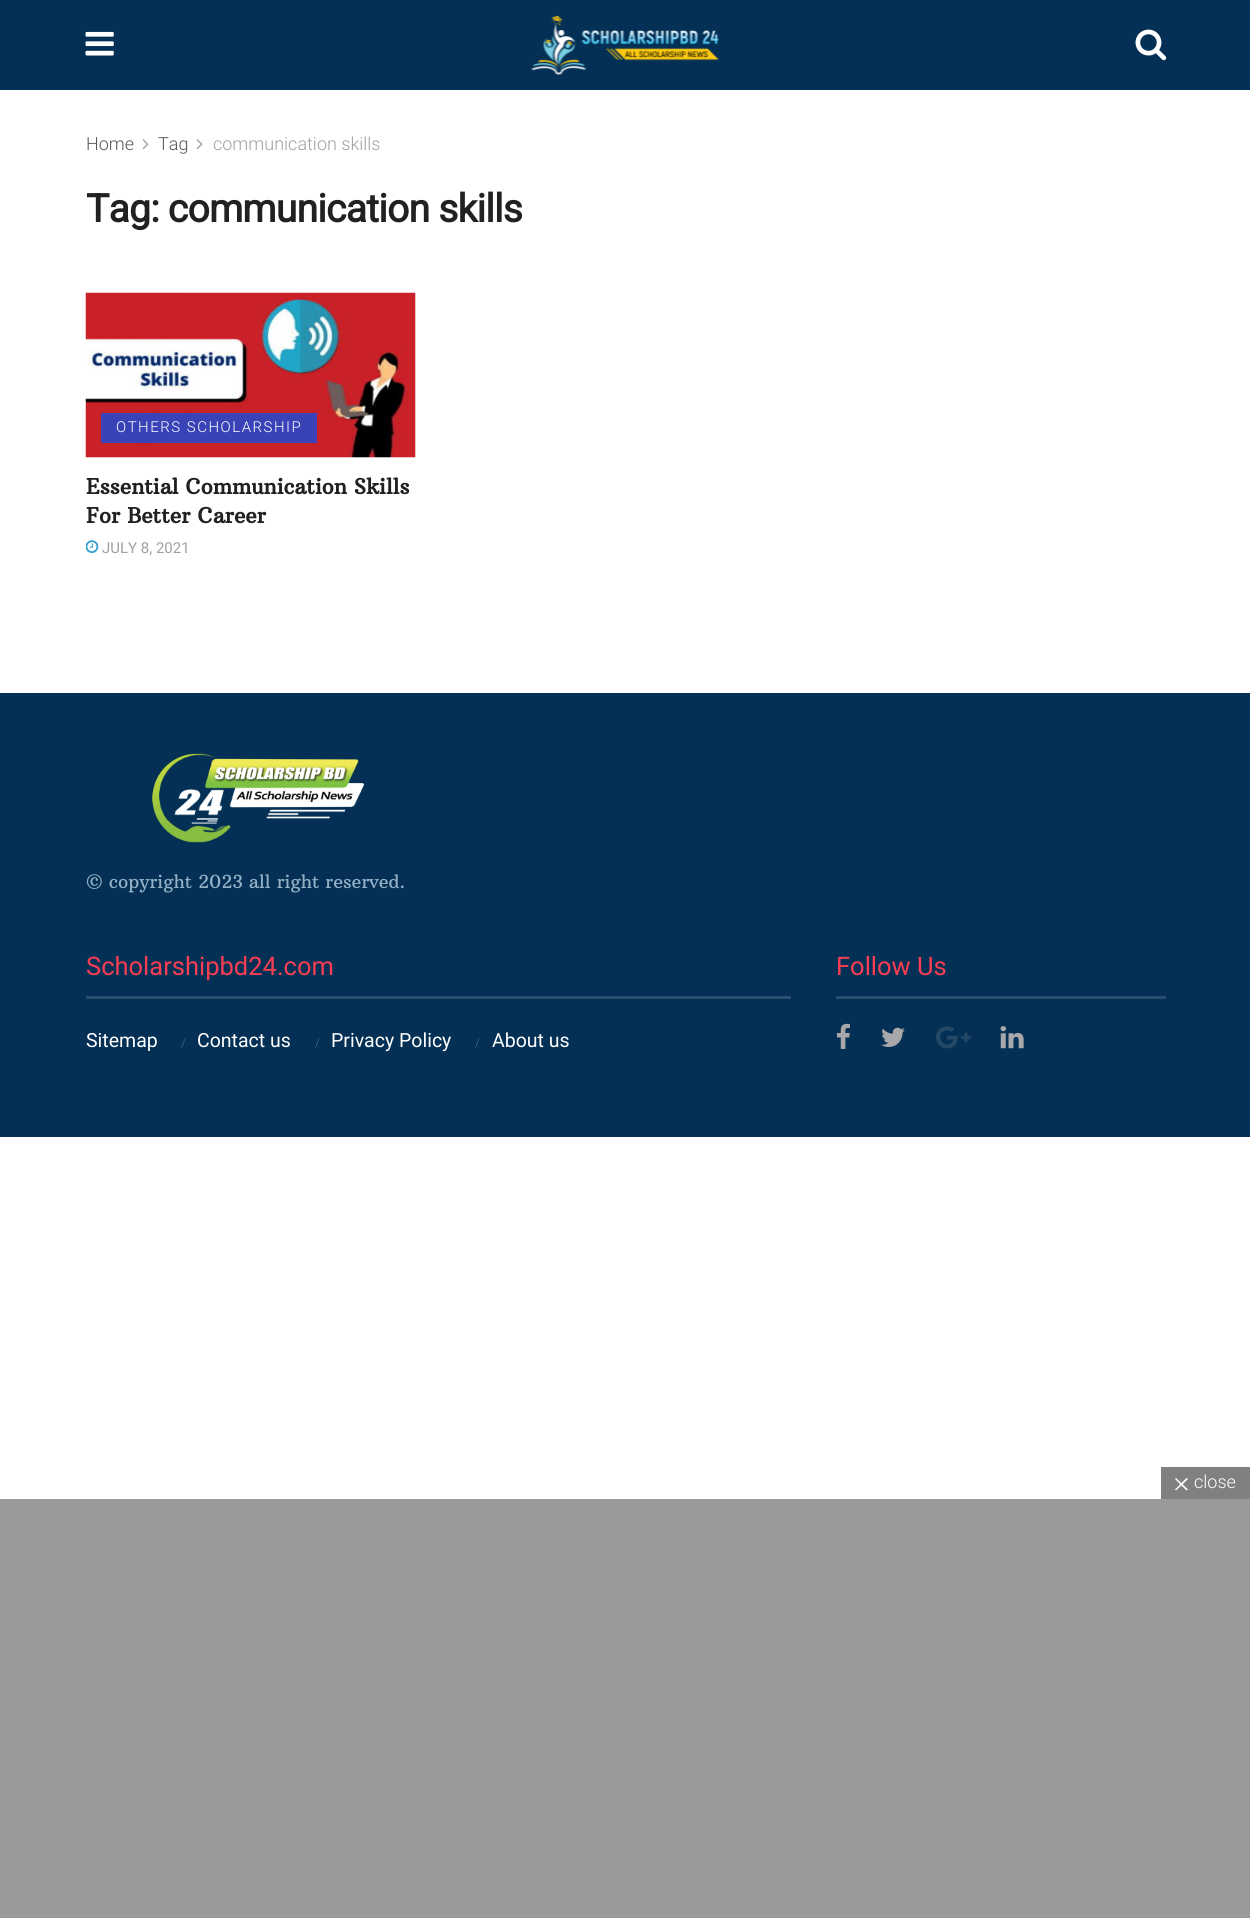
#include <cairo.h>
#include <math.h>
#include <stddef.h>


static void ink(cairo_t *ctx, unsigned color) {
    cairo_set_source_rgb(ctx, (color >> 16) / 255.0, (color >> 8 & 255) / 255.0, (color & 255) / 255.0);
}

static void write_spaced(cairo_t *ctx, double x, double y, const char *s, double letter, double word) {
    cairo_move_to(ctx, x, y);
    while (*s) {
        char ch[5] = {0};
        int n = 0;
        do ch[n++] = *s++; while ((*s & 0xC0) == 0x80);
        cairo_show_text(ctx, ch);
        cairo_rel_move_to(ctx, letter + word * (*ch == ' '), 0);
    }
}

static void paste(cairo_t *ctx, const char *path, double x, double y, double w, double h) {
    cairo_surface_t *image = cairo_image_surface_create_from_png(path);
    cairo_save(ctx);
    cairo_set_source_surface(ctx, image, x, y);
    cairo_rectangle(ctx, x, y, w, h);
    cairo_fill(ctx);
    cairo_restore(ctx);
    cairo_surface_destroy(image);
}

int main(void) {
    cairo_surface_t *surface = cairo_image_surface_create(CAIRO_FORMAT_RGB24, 1250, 1918);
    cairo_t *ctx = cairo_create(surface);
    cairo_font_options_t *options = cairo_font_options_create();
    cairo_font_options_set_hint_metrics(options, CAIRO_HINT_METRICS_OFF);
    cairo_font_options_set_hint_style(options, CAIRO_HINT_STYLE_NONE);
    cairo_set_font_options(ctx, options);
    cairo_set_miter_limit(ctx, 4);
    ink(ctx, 0xFFFFFF);
    cairo_paint(ctx);
    ink(ctx, 0x033054);
    cairo_rectangle(ctx, 0, 0, 1250, 90);
    cairo_fill(ctx);
    paste(ctx, "media/1.png", 85, 31, 29, 25);
    paste(ctx, "media/2.png", 531, 15, 188, 60);
    paste(ctx, "media/3.png", 1135, 29, 32, 32);
    cairo_select_font_face(ctx, "Roboto Light", CAIRO_FONT_SLANT_NORMAL, CAIRO_FONT_WEIGHT_NORMAL);
    cairo_set_font_size(ctx, 18);
    ink(ctx, 0x53585C);
    cairo_move_to(ctx, 86, 150);
    cairo_show_text(ctx, "Home");
    paste(ctx, "media/4.png", 142, 139, 7, 11);
    cairo_move_to(ctx, 158, 150);
    cairo_show_text(ctx, "Tag");
    paste(ctx, "media/4.png", 196, 139, 7, 11);
    ink(ctx, 0xA0A0A0);
    cairo_move_to(ctx, 213, 150);
    cairo_show_text(ctx, "communication skills");
    cairo_select_font_face(ctx, "Roboto", CAIRO_FONT_SLANT_NORMAL, CAIRO_FONT_WEIGHT_BOLD);
    cairo_set_font_size(ctx, 39);
    ink(ctx, 0x212121);
    write_spaced(ctx, 86, 222, "Tag: communication skills", -0.75, 0);
    ink(ctx, 0xF7F7F7);
    cairo_rectangle(ctx, 86, 293, 330, 165);
    cairo_fill(ctx);
    paste(ctx, "media/6.png", 124, 292, 62, 1);
    paste(ctx, "media/5.png", 85, 292, 331, 166);
    ink(ctx, 0x3943B7);
    cairo_rectangle(ctx, 101, 413, 216, 30);
    cairo_fill(ctx);
    cairo_select_font_face(ctx, "Roboto Light", CAIRO_FONT_SLANT_NORMAL, CAIRO_FONT_WEIGHT_NORMAL);
    cairo_set_font_size(ctx, 15);
    ink(ctx, 0xFFFFFF);
    write_spaced(ctx, 116, 432, "OTHERS SCHOLARSHIP", 1.5, 0);
    cairo_select_font_face(ctx, "Arbutus Slab", CAIRO_FONT_SLANT_NORMAL, CAIRO_FONT_WEIGHT_BOLD);
    cairo_set_font_size(ctx, 21);
    ink(ctx, 0x212121);
    cairo_move_to(ctx, 86, 494);
    cairo_show_text(ctx, "Essential Communication Skills");
    cairo_move_to(ctx, 86, 523);
    cairo_show_text(ctx, "For Better Career");
    paste(ctx, "media/7.png", 86, 540, 13, 14);
    cairo_select_font_face(ctx, "Roboto", CAIRO_FONT_SLANT_NORMAL, CAIRO_FONT_WEIGHT_NORMAL);
    cairo_set_font_size(ctx, 15);
    ink(ctx, 0xA0A0A0);
    cairo_move_to(ctx, 102, 553);
    cairo_show_text(ctx, "JULY 8, 2021");
    ink(ctx, 0x033054);
    cairo_rectangle(ctx, 0, 693, 1250, 444);
    cairo_fill(ctx);
    paste(ctx, "media/8.png", 152, 753, 212, 90);
    cairo_select_font_face(ctx, "Arbutus Slab", CAIRO_FONT_SLANT_NORMAL, CAIRO_FONT_WEIGHT_NORMAL);
    cairo_set_font_size(ctx, 18);
    ink(ctx, 0x95B1C7);
    cairo_move_to(ctx, 86, 888);
    cairo_show_text(ctx, "© copyright 2023 all right reserved.");
    ink(ctx, 0x294F6E);
    cairo_rectangle(ctx, 86, 996, 705, 3);
    cairo_fill(ctx);
    cairo_select_font_face(ctx, "Roboto", CAIRO_FONT_SLANT_NORMAL, CAIRO_FONT_WEIGHT_NORMAL);
    cairo_set_font_size(ctx, 25.5);
    ink(ctx, 0xF93D53);
    cairo_move_to(ctx, 86, 975);
    cairo_show_text(ctx, "Scholarshipbd24.com");
    cairo_set_font_size(ctx, 19.5);
    ink(ctx, 0xFFFFFF);
    cairo_move_to(ctx, 86, 1047);
    cairo_show_text(ctx, "Sitemap");
    cairo_select_font_face(ctx, "Roboto Light", CAIRO_FONT_SLANT_NORMAL, CAIRO_FONT_WEIGHT_NORMAL);
    cairo_set_font_size(ctx, 12);
    ink(ctx, 0x4F6E87);
    cairo_move_to(ctx, 181, 1047);
    cairo_show_text(ctx, "/");
    cairo_select_font_face(ctx, "Roboto", CAIRO_FONT_SLANT_NORMAL, CAIRO_FONT_WEIGHT_NORMAL);
    cairo_set_font_size(ctx, 19.5);
    ink(ctx, 0xFFFFFF);
    cairo_move_to(ctx, 197, 1047);
    cairo_show_text(ctx, "Contact us");
    cairo_select_font_face(ctx, "Roboto Light", CAIRO_FONT_SLANT_NORMAL, CAIRO_FONT_WEIGHT_NORMAL);
    cairo_set_font_size(ctx, 12);
    ink(ctx, 0x4F6E87);
    cairo_move_to(ctx, 315, 1047);
    cairo_show_text(ctx, "/");
    cairo_select_font_face(ctx, "Roboto", CAIRO_FONT_SLANT_NORMAL, CAIRO_FONT_WEIGHT_NORMAL);
    cairo_set_font_size(ctx, 19.5);
    ink(ctx, 0xFFFFFF);
    cairo_move_to(ctx, 331, 1047);
    cairo_show_text(ctx, "Privacy Policy");
    cairo_select_font_face(ctx, "Roboto Light", CAIRO_FONT_SLANT_NORMAL, CAIRO_FONT_WEIGHT_NORMAL);
    cairo_set_font_size(ctx, 12);
    ink(ctx, 0x4F6E87);
    cairo_move_to(ctx, 475, 1047);
    cairo_show_text(ctx, "/");
    cairo_select_font_face(ctx, "Roboto", CAIRO_FONT_SLANT_NORMAL, CAIRO_FONT_WEIGHT_NORMAL);
    cairo_set_font_size(ctx, 19.5);
    ink(ctx, 0xFFFFFF);
    cairo_move_to(ctx, 492, 1047);
    cairo_show_text(ctx, "About us");
    ink(ctx, 0x294F6E);
    cairo_rectangle(ctx, 836, 996, 330, 3);
    cairo_fill(ctx);
    cairo_set_font_size(ctx, 25.5);
    ink(ctx, 0xF93D53);
    cairo_move_to(ctx, 836, 975);
    cairo_show_text(ctx, "Follow Us");
    paste(ctx, "media/9.png", 836, 1023, 14, 26);
    paste(ctx, "media/10.png", 881, 1027, 24, 20);
    paste(ctx, "media/11.png", 936, 1026, 35, 23);
    paste(ctx, "media/12.png", 1000, 1026, 24, 23);
    ink(ctx, 0x9A9A9A);
    cairo_rectangle(ctx, 0, 1499, 1250, 419);
    cairo_fill(ctx);
    ink(ctx, 0x808080);
    cairo_rectangle(ctx, 1161, 1467, 89, 32);
    cairo_fill(ctx);
    ink(ctx, 0xFFFFFF);
    cairo_new_path(ctx);
    cairo_move_to(ctx, 1176, 1478);
    cairo_line_to(ctx, 1188, 1489.5);
    cairo_line_to(ctx, 1186.5, 1490.5);
    cairo_line_to(ctx, 1175, 1479);
    cairo_close_path(ctx);
    cairo_fill(ctx);
    cairo_select_font_face(ctx, "Roboto Light", CAIRO_FONT_SLANT_NORMAL, CAIRO_FONT_WEIGHT_NORMAL);
    cairo_set_font_size(ctx, 18);
    cairo_move_to(ctx, 1194, 1488);
    cairo_show_text(ctx, "close");
    cairo_new_path(ctx);
    cairo_move_to(ctx, 1186.5, 1478);
    cairo_line_to(ctx, 1188, 1479);
    cairo_line_to(ctx, 1176, 1490.5);
    cairo_line_to(ctx, 1175, 1489.5);
    cairo_close_path(ctx);
    cairo_fill(ctx);
    cairo_surface_write_to_png(surface, "image.png");
    cairo_font_options_destroy(options);
    cairo_destroy(ctx);
    cairo_surface_destroy(surface);
    return 0;
}
